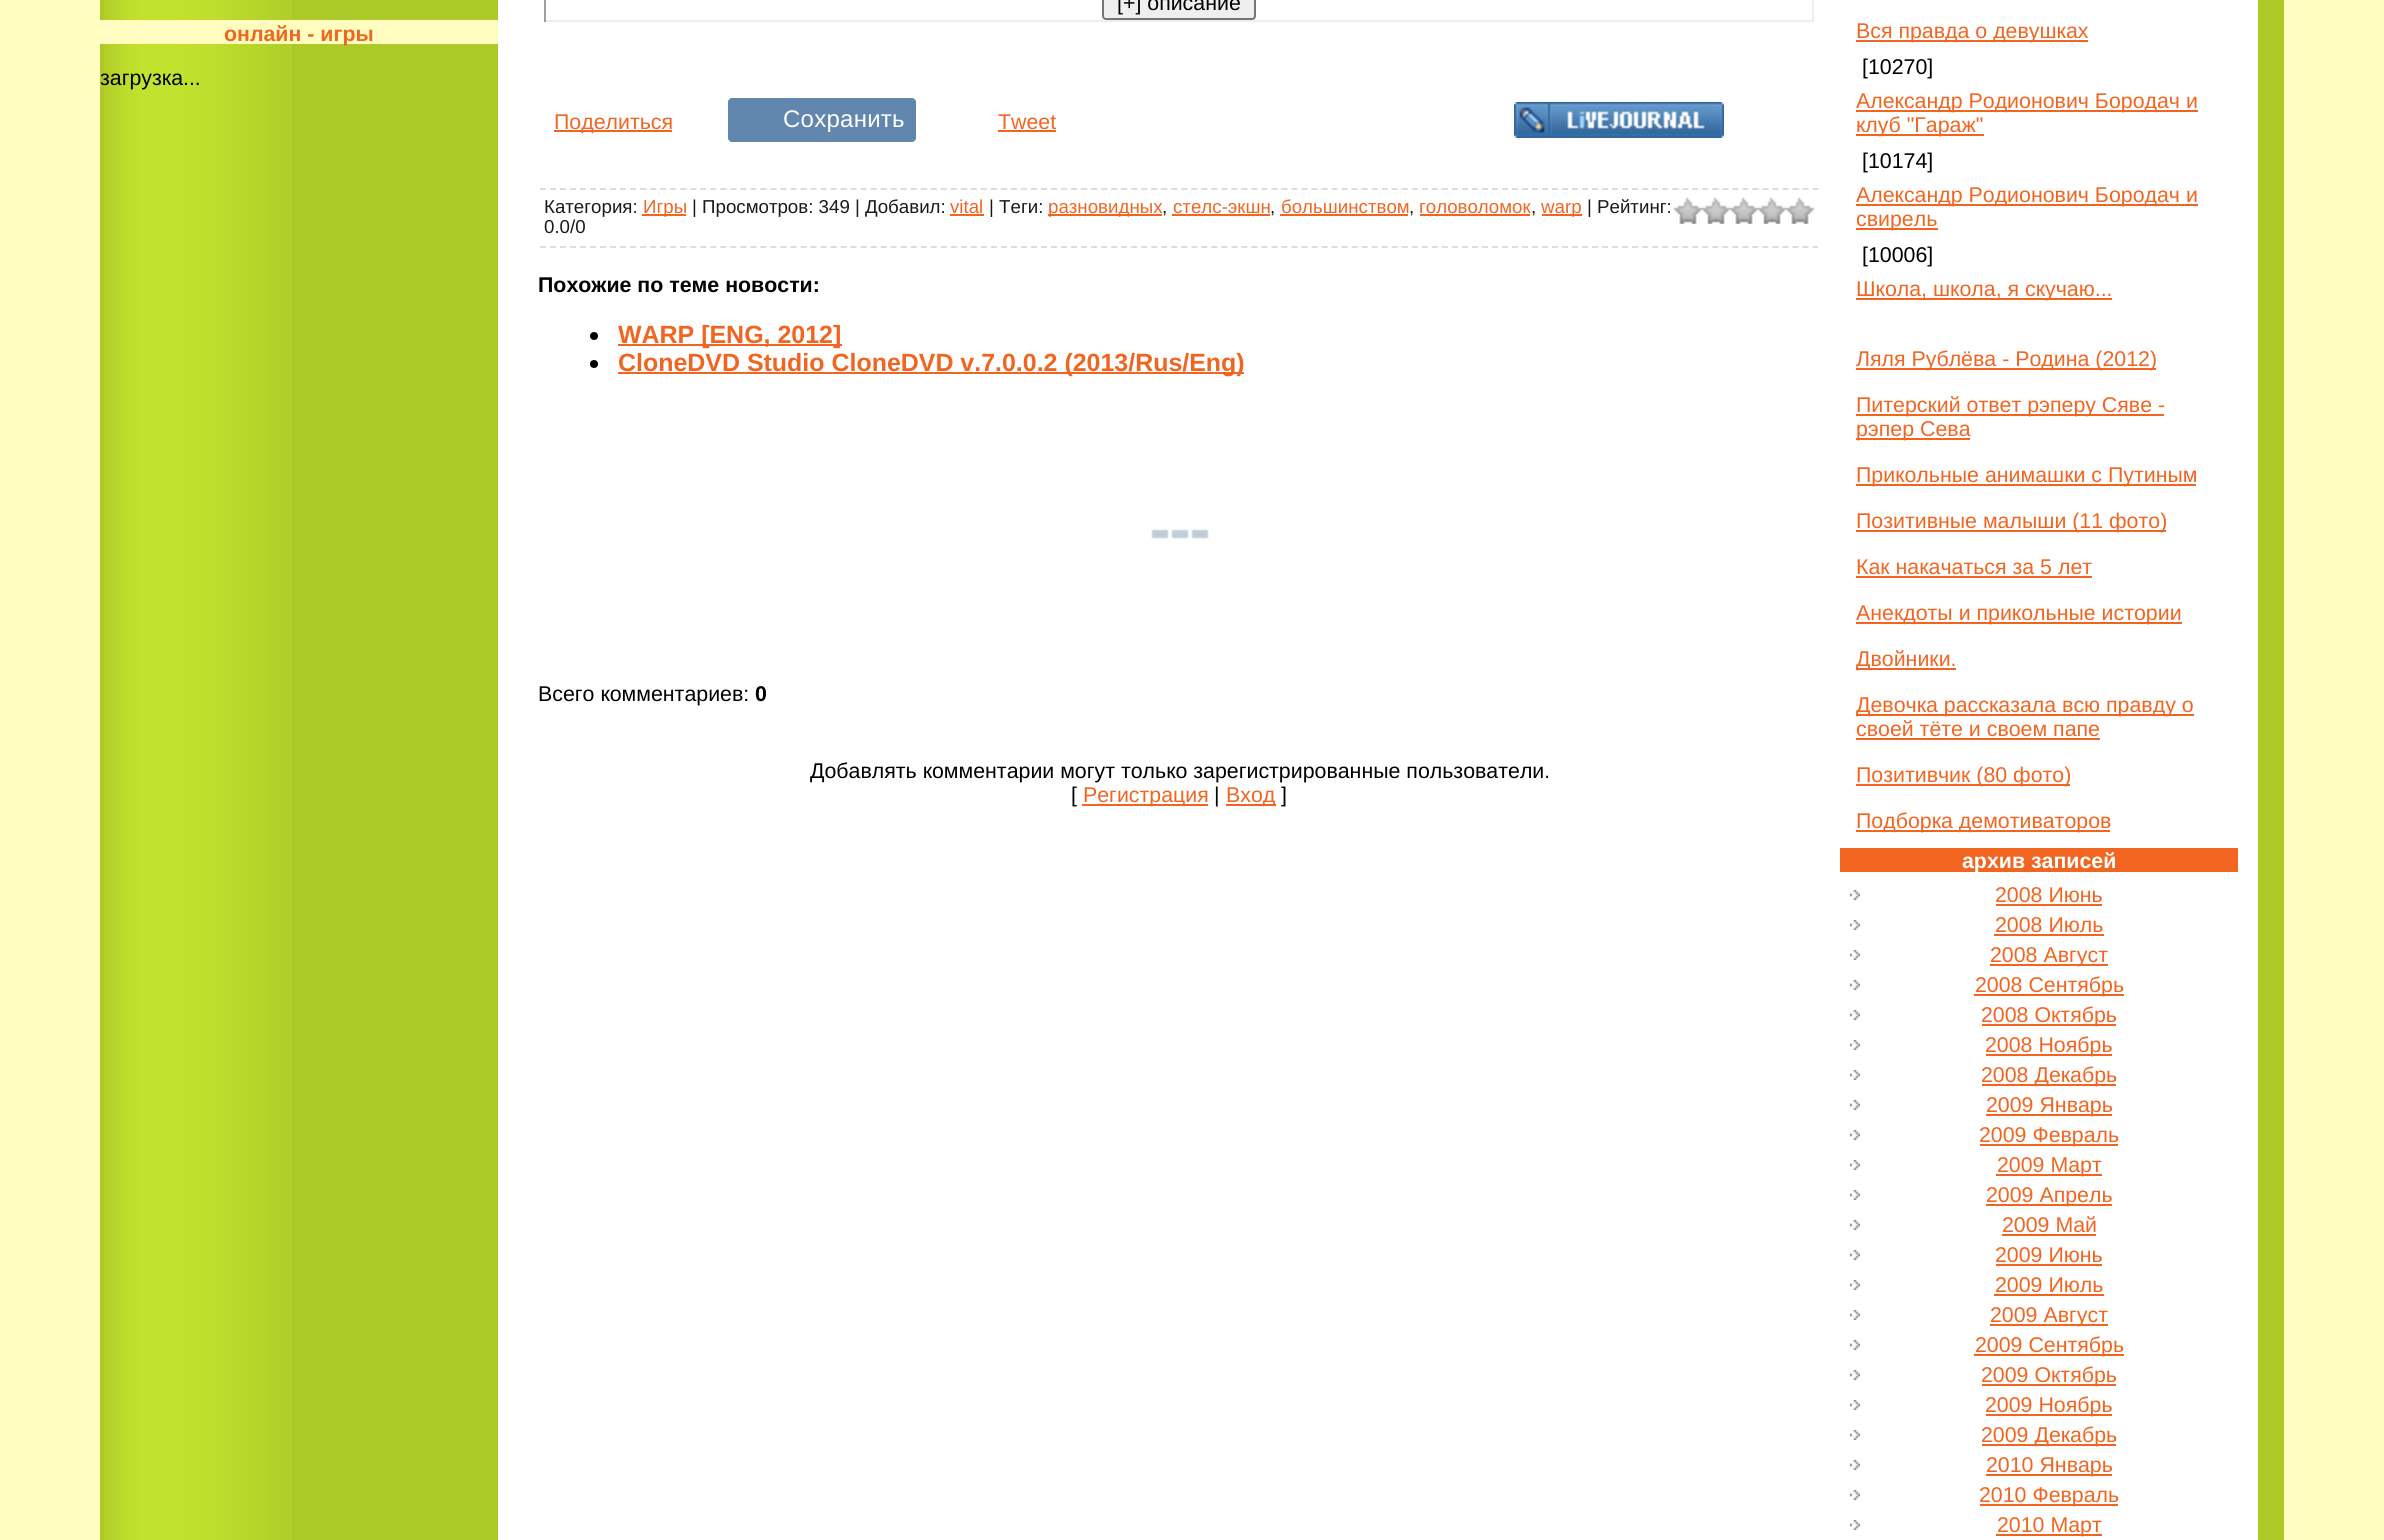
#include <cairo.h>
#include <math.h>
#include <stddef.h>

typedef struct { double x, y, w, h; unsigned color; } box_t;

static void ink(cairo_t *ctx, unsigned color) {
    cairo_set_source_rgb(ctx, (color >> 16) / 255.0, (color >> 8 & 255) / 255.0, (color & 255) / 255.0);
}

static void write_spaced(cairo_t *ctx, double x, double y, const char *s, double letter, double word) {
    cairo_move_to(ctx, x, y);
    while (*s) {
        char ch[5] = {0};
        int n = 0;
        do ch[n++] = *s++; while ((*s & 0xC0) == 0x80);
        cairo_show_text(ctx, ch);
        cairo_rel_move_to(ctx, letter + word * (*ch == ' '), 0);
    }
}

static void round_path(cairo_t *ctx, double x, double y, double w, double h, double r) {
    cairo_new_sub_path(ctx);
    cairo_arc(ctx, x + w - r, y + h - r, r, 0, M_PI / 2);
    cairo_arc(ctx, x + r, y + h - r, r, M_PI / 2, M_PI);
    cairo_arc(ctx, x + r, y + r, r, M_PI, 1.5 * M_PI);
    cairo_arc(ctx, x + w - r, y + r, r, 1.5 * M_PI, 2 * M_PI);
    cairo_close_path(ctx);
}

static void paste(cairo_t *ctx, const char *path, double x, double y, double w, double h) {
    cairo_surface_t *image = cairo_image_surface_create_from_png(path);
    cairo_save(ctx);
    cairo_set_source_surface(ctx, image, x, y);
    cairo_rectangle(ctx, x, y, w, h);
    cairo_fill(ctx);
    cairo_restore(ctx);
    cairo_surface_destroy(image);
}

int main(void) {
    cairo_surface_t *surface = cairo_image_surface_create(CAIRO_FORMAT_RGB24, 2384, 1540);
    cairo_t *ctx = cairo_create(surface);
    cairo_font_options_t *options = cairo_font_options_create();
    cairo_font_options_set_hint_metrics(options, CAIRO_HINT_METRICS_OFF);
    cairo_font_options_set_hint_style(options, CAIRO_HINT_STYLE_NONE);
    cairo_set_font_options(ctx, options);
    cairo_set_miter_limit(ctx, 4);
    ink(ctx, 0xFFFEC0);
    cairo_paint(ctx);
    ink(ctx, 0xADC928);
    cairo_rectangle(ctx, 100, 0, 398, 1540);
    cairo_fill(ctx);
    paste(ctx, "media/1.png", 104, 0, 188, 1540);
    ink(ctx, 0xFFFEC0);
    cairo_rectangle(ctx, 100, 20, 398, 24);
    cairo_fill(ctx);
    cairo_select_font_face(ctx, "Liberation Sans", CAIRO_FONT_SLANT_NORMAL, CAIRO_FONT_WEIGHT_BOLD);
    cairo_set_font_size(ctx, 21.35);
    ink(ctx, 0xF26521);
    cairo_move_to(ctx, 224, 41);
    cairo_show_text(ctx, "онлайн - игры");
    cairo_select_font_face(ctx, "Liberation Sans", CAIRO_FONT_SLANT_NORMAL, CAIRO_FONT_WEIGHT_NORMAL);
    ink(ctx, 0x000000);
    cairo_move_to(ctx, 100, 85);
    cairo_show_text(ctx, "загрузка...");
    {
        static const box_t items[] = {
            {498, 0, 1760, 1540, 0xFFFFFF},
            {2258, 0, 26, 1540, 0xADC928},
            {1812, 0, 2, 22, 0xEEEEEE},
            {544, 20, 1270, 2, 0xEEEEEE},
            {544, 0, 2, 22, 0x9F9F9F},
        };
        for (size_t i = 0; i < sizeof items / sizeof *items; i++) {
            ink(ctx, items[i].color);
            cairo_rectangle(ctx, items[i].x, items[i].y, items[i].w, items[i].h);
            cairo_fill(ctx);
        }
    }
    ink(ctx, 0xEFEFEF);
    round_path(ctx, 1103, -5, 152, 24, 3);
    cairo_fill_preserve(ctx);
    ink(ctx, 0x767676);
    cairo_stroke(ctx);
    ink(ctx, 0x000000);
    cairo_move_to(ctx, 1117, 10);
    cairo_show_text(ctx, "[+] описание");
    ink(ctx, 0xF26521);
    cairo_rectangle(ctx, 554, 130, 118, 2);
    cairo_fill(ctx);
    cairo_move_to(ctx, 554, 129);
    cairo_show_text(ctx, "Поделиться");
    ink(ctx, 0x6287AE);
    cairo_new_path(ctx);
    cairo_move_to(ctx, 732, 98);
    cairo_line_to(ctx, 782, 98);
    cairo_line_to(ctx, 782, 142);
    cairo_line_to(ctx, 732, 142);
    cairo_curve_to(ctx, 730, 142, 728, 140, 728, 138);
    cairo_line_to(ctx, 728, 102);
    cairo_curve_to(ctx, 728, 100, 730, 98, 732, 98);
    cairo_close_path(ctx);
    cairo_fill(ctx);
    cairo_new_path(ctx);
    cairo_move_to(ctx, 782, 98);
    cairo_line_to(ctx, 912, 98);
    cairo_curve_to(ctx, 914, 98, 916, 100, 916, 102);
    cairo_line_to(ctx, 916, 138);
    cairo_curve_to(ctx, 916, 140, 914, 142, 912, 142);
    cairo_line_to(ctx, 782, 142);
    cairo_close_path(ctx);
    cairo_fill(ctx);
    cairo_set_font_size(ctx, 24);
    ink(ctx, 0xFFFFFF);
    write_spaced(ctx, 783, 127, "Сохранить", 0.25, 0);
    cairo_set_font_size(ctx, 21.35);
    ink(ctx, 0xF26521);
    cairo_move_to(ctx, 998, 129);
    cairo_show_text(ctx, "Tweet");
    cairo_rectangle(ctx, 998, 130, 58, 2);
    cairo_fill(ctx);
    paste(ctx, "media/2.png", 1514, 102, 210, 36);
    cairo_new_path(ctx);
    cairo_move_to(ctx, 540, 189);
    cairo_line_to(ctx, 1818, 189);
    ink(ctx, 0xDDDDDD);
    cairo_set_dash(ctx, (double[]){6, 4.02}, 2, 0);
    cairo_stroke(ctx);
    cairo_new_path(ctx);
    cairo_move_to(ctx, 540, 247);
    cairo_line_to(ctx, 1818, 247);
    cairo_stroke(ctx);
    cairo_set_font_size(ctx, 18.7);
    ink(ctx, 0x1A1A1A);
    cairo_move_to(ctx, 544, 213);
    cairo_show_text(ctx, "Категория:");
    ink(ctx, 0xF26521);
    cairo_rectangle(ctx, 642, 214, 44, 2);
    cairo_fill(ctx);
    cairo_move_to(ctx, 643, 213);
    cairo_show_text(ctx, "Игры");
    ink(ctx, 0x1A1A1A);
    cairo_move_to(ctx, 692, 213);
    cairo_show_text(ctx, "| Просмотров: 349 | Добавил:");
    ink(ctx, 0xF26521);
    cairo_move_to(ctx, 950, 213);
    cairo_show_text(ctx, "vital");
    cairo_rectangle(ctx, 950, 214, 34, 2);
    cairo_fill(ctx);
    ink(ctx, 0x1A1A1A);
    cairo_move_to(ctx, 989, 213);
    cairo_show_text(ctx, "| Теги:");
    ink(ctx, 0xF26521);
    cairo_rectangle(ctx, 1048, 214, 114, 2);
    cairo_fill(ctx);
    cairo_move_to(ctx, 1048, 213);
    cairo_show_text(ctx, "разновидных");
    ink(ctx, 0x1A1A1A);
    cairo_move_to(ctx, 1162, 213);
    cairo_show_text(ctx, ",");
    ink(ctx, 0xF26521);
    cairo_move_to(ctx, 1173, 213);
    cairo_show_text(ctx, "стелс-экшн");
    ink(ctx, 0x1A1A1A);
    cairo_move_to(ctx, 1270, 213);
    cairo_show_text(ctx, ",");
    ink(ctx, 0xF26521);
    cairo_rectangle(ctx, 1172, 214, 98, 2);
    cairo_fill(ctx);
    cairo_move_to(ctx, 1281, 213);
    cairo_show_text(ctx, "большинством");
    ink(ctx, 0x1A1A1A);
    cairo_move_to(ctx, 1409, 213);
    cairo_show_text(ctx, ",");
    ink(ctx, 0xF26521);
    cairo_rectangle(ctx, 1280, 214, 128, 2);
    cairo_fill(ctx);
    cairo_move_to(ctx, 1419, 213);
    cairo_show_text(ctx, "голoвoломок");
    ink(ctx, 0x1A1A1A);
    cairo_move_to(ctx, 1531, 213);
    cairo_show_text(ctx, ",");
    ink(ctx, 0xF26521);
    cairo_rectangle(ctx, 1420, 214, 110, 2);
    cairo_fill(ctx);
    cairo_rectangle(ctx, 1542, 214, 40, 2);
    cairo_fill(ctx);
    cairo_move_to(ctx, 1541, 213);
    cairo_show_text(ctx, "warp");
    ink(ctx, 0x1A1A1A);
    cairo_move_to(ctx, 1587, 213);
    cairo_show_text(ctx, "| Рейтинг:");
    paste(ctx, "media/3.png", 1674, 197, 140, 27);
    cairo_move_to(ctx, 544, 233);
    cairo_show_text(ctx, "0.0/0");
    cairo_select_font_face(ctx, "Liberation Sans", CAIRO_FONT_SLANT_NORMAL, CAIRO_FONT_WEIGHT_BOLD);
    cairo_set_font_size(ctx, 21.35);
    ink(ctx, 0x000000);
    cairo_move_to(ctx, 538, 292);
    cairo_show_text(ctx, "Похожие по теме новости:");
    cairo_new_path(ctx);
    cairo_arc(ctx, 594, 336, 4, 0, 2 * M_PI);
    cairo_fill(ctx);
    ink(ctx, 0xF26521);
    cairo_rectangle(ctx, 618, 344, 224, 2);
    cairo_fill(ctx);
    cairo_set_font_size(ctx, 24.95);
    cairo_move_to(ctx, 618, 343);
    cairo_show_text(ctx, "WARP [ENG, 2012]");
    ink(ctx, 0x000000);
    cairo_new_path(ctx);
    cairo_arc(ctx, 594, 364, 4, 0, 2 * M_PI);
    cairo_fill(ctx);
    ink(ctx, 0xF26521);
    cairo_rectangle(ctx, 618, 372, 626, 2);
    cairo_fill(ctx);
    cairo_move_to(ctx, 618, 371);
    cairo_show_text(ctx, "CloneDVD Studio CloneDVD v.7.0.0.2 (2013/Rus/Eng)");
    paste(ctx, "media/4.png", 1151, 529, 58, 10);
    cairo_select_font_face(ctx, "Liberation Sans", CAIRO_FONT_SLANT_NORMAL, CAIRO_FONT_WEIGHT_NORMAL);
    cairo_set_font_size(ctx, 21.35);
    ink(ctx, 0x000000);
    cairo_move_to(ctx, 538, 701);
    cairo_show_text(ctx, "Всего комментариев:");
    cairo_select_font_face(ctx, "Liberation Sans", CAIRO_FONT_SLANT_NORMAL, CAIRO_FONT_WEIGHT_BOLD);
    cairo_move_to(ctx, 755, 701);
    cairo_show_text(ctx, "0");
    cairo_select_font_face(ctx, "Liberation Sans", CAIRO_FONT_SLANT_NORMAL, CAIRO_FONT_WEIGHT_NORMAL);
    cairo_move_to(ctx, 810, 778);
    cairo_show_text(ctx, "Добавлять комментарии могут только зарегистрированные пользователи.");
    cairo_move_to(ctx, 1071, 802);
    cairo_show_text(ctx, "[");
    ink(ctx, 0xF26521);
    cairo_rectangle(ctx, 1082, 804, 126, 2);
    cairo_fill(ctx);
    cairo_move_to(ctx, 1083, 802);
    cairo_show_text(ctx, "Регистрация");
    ink(ctx, 0x000000);
    cairo_move_to(ctx, 1214, 802);
    cairo_show_text(ctx, "|");
    ink(ctx, 0xF26521);
    cairo_rectangle(ctx, 1226, 804, 50, 2);
    cairo_fill(ctx);
    cairo_move_to(ctx, 1226, 802);
    cairo_show_text(ctx, "Вход");
    ink(ctx, 0x000000);
    cairo_move_to(ctx, 1281, 802);
    cairo_show_text(ctx, "]");
    ink(ctx, 0xF26521);
    cairo_rectangle(ctx, 1856, 40, 232, 2);
    cairo_fill(ctx);
    cairo_move_to(ctx, 1856, 38);
    cairo_show_text(ctx, "Вся правда о девушках");
    ink(ctx, 0x000000);
    cairo_move_to(ctx, 1862, 74);
    cairo_show_text(ctx, "[10270]");
    ink(ctx, 0xF26521);
    cairo_rectangle(ctx, 1856, 110, 342, 2);
    cairo_fill(ctx);
    cairo_move_to(ctx, 1856, 108);
    cairo_show_text(ctx, "Александр Родионович Бородач и");
    cairo_rectangle(ctx, 1856, 134, 128, 2);
    cairo_fill(ctx);
    cairo_move_to(ctx, 1856, 132);
    cairo_show_text(ctx, "клуб \"Гараж\"");
    ink(ctx, 0x000000);
    cairo_move_to(ctx, 1862, 168);
    cairo_show_text(ctx, "[10174]");
    ink(ctx, 0xF26521);
    cairo_rectangle(ctx, 1856, 204, 342, 2);
    cairo_fill(ctx);
    cairo_move_to(ctx, 1856, 202);
    cairo_show_text(ctx, "Александр Родионович Бородач и");
    cairo_rectangle(ctx, 1856, 228, 82, 2);
    cairo_fill(ctx);
    cairo_move_to(ctx, 1856, 226);
    cairo_show_text(ctx, "свирель");
    ink(ctx, 0x000000);
    cairo_move_to(ctx, 1862, 262);
    cairo_show_text(ctx, "[10006]");
    ink(ctx, 0xF26521);
    cairo_rectangle(ctx, 1856, 298, 256, 2);
    cairo_fill(ctx);
    cairo_move_to(ctx, 1856, 296);
    cairo_show_text(ctx, "Школа, школа, я скучаю...");
    cairo_rectangle(ctx, 1856, 368, 300, 2);
    cairo_fill(ctx);
    cairo_move_to(ctx, 1856, 366);
    cairo_show_text(ctx, "Ляля Рублёва - Родина (2012)");
    cairo_rectangle(ctx, 1856, 414, 308, 2);
    cairo_fill(ctx);
    cairo_move_to(ctx, 1856, 412);
    cairo_show_text(ctx, "Питерский ответ рэперу Сяве -");
    cairo_rectangle(ctx, 1856, 438, 114, 2);
    cairo_fill(ctx);
    cairo_move_to(ctx, 1856, 436);
    cairo_show_text(ctx, "рэпер Сева");
    cairo_rectangle(ctx, 1856, 484, 340, 2);
    cairo_fill(ctx);
    cairo_move_to(ctx, 1856, 482);
    cairo_show_text(ctx, "Прикольные анимашки с Путиным");
    cairo_rectangle(ctx, 1856, 530, 310, 2);
    cairo_fill(ctx);
    cairo_move_to(ctx, 1856, 528);
    cairo_show_text(ctx, "Позитивные малыши (11 фото)");
    cairo_move_to(ctx, 1856, 574);
    cairo_show_text(ctx, "Как накачаться за 5 лет");
    cairo_rectangle(ctx, 1856, 576, 236, 2);
    cairo_fill(ctx);
    cairo_rectangle(ctx, 1856, 622, 326, 2);
    cairo_fill(ctx);
    cairo_move_to(ctx, 1856, 620);
    cairo_show_text(ctx, "Анекдоты и прикольные истории");
    cairo_rectangle(ctx, 1856, 668, 100, 2);
    cairo_fill(ctx);
    cairo_move_to(ctx, 1856, 666);
    cairo_show_text(ctx, "Двойники.");
    cairo_rectangle(ctx, 1856, 714, 338, 2);
    cairo_fill(ctx);
    cairo_move_to(ctx, 1856, 712);
    cairo_show_text(ctx, "Девочка рассказала всю правду о");
    cairo_move_to(ctx, 1856, 736);
    cairo_show_text(ctx, "своей тёте и своем папе");
    cairo_rectangle(ctx, 1856, 738, 244, 2);
    cairo_fill(ctx);
    cairo_rectangle(ctx, 1856, 784, 214, 2);
    cairo_fill(ctx);
    cairo_move_to(ctx, 1856, 782);
    cairo_show_text(ctx, "Позитивчик (80 фото)");
    cairo_rectangle(ctx, 1856, 830, 254, 2);
    cairo_fill(ctx);
    cairo_move_to(ctx, 1856, 828);
    cairo_show_text(ctx, "Подборка демотиваторов");
    cairo_rectangle(ctx, 1840, 848, 398, 24);
    cairo_fill(ctx);
    cairo_select_font_face(ctx, "Liberation Sans", CAIRO_FONT_SLANT_NORMAL, CAIRO_FONT_WEIGHT_BOLD);
    ink(ctx, 0xFFFFFF);
    cairo_move_to(ctx, 1962, 868);
    cairo_show_text(ctx, "архив записей");
    paste(ctx, "media/5.png", 1850, 890, 10, 10);
    cairo_select_font_face(ctx, "Liberation Sans", CAIRO_FONT_SLANT_NORMAL, CAIRO_FONT_WEIGHT_NORMAL);
    ink(ctx, 0xF26521);
    cairo_move_to(ctx, 1995, 902);
    cairo_show_text(ctx, "2008 Июнь");
    cairo_rectangle(ctx, 1996, 904, 106, 2);
    cairo_fill(ctx);
    paste(ctx, "media/5.png", 1850, 920, 10, 10);
    cairo_move_to(ctx, 1995, 932);
    cairo_show_text(ctx, "2008 Июль");
    cairo_rectangle(ctx, 1994, 934, 110, 2);
    cairo_fill(ctx);
    paste(ctx, "media/5.png", 1850, 950, 10, 10);
    cairo_rectangle(ctx, 1990, 964, 118, 2);
    cairo_fill(ctx);
    cairo_move_to(ctx, 1990, 962);
    cairo_show_text(ctx, "2008 Август");
    paste(ctx, "media/5.png", 1850, 980, 10, 10);
    cairo_rectangle(ctx, 1974, 994, 150, 2);
    cairo_fill(ctx);
    cairo_move_to(ctx, 1975, 992);
    cairo_show_text(ctx, "2008 Сентябрь");
    paste(ctx, "media/5.png", 1850, 1010, 10, 10);
    cairo_rectangle(ctx, 1982, 1024, 134, 2);
    cairo_fill(ctx);
    cairo_move_to(ctx, 1981, 1022);
    cairo_show_text(ctx, "2008 Октябрь");
    paste(ctx, "media/5.png", 1850, 1040, 10, 10);
    cairo_rectangle(ctx, 1986, 1054, 126, 2);
    cairo_fill(ctx);
    cairo_move_to(ctx, 1985, 1052);
    cairo_show_text(ctx, "2008 Ноябрь");
    paste(ctx, "media/5.png", 1850, 1070, 10, 10);
    cairo_rectangle(ctx, 1982, 1084, 134, 2);
    cairo_fill(ctx);
    cairo_move_to(ctx, 1981, 1082);
    cairo_show_text(ctx, "2008 Декабрь");
    paste(ctx, "media/5.png", 1850, 1100, 10, 10);
    cairo_rectangle(ctx, 1986, 1114, 126, 2);
    cairo_fill(ctx);
    cairo_move_to(ctx, 1986, 1112);
    cairo_show_text(ctx, "2009 Январь");
    paste(ctx, "media/5.png", 1850, 1130, 10, 10);
    cairo_rectangle(ctx, 1980, 1144, 138, 2);
    cairo_fill(ctx);
    cairo_move_to(ctx, 1979, 1142);
    cairo_show_text(ctx, "2009 Февраль");
    paste(ctx, "media/5.png", 1850, 1160, 10, 10);
    cairo_rectangle(ctx, 1996, 1174, 106, 2);
    cairo_fill(ctx);
    cairo_move_to(ctx, 1997, 1172);
    cairo_show_text(ctx, "2009 Март");
    paste(ctx, "media/5.png", 1850, 1190, 10, 10);
    cairo_rectangle(ctx, 1986, 1204, 126, 2);
    cairo_fill(ctx);
    cairo_move_to(ctx, 1986, 1202);
    cairo_show_text(ctx, "2009 Апрель");
    paste(ctx, "media/5.png", 1850, 1220, 10, 10);
    cairo_move_to(ctx, 2002, 1232);
    cairo_show_text(ctx, "2009 Май");
    cairo_rectangle(ctx, 2002, 1234, 94, 2);
    cairo_fill(ctx);
    paste(ctx, "media/5.png", 1850, 1250, 10, 10);
    cairo_move_to(ctx, 1995, 1262);
    cairo_show_text(ctx, "2009 Июнь");
    cairo_rectangle(ctx, 1996, 1264, 106, 2);
    cairo_fill(ctx);
    paste(ctx, "media/5.png", 1850, 1280, 10, 10);
    cairo_move_to(ctx, 1995, 1292);
    cairo_show_text(ctx, "2009 Июль");
    cairo_rectangle(ctx, 1994, 1294, 110, 2);
    cairo_fill(ctx);
    paste(ctx, "media/5.png", 1850, 1310, 10, 10);
    cairo_rectangle(ctx, 1990, 1324, 118, 2);
    cairo_fill(ctx);
    cairo_move_to(ctx, 1990, 1322);
    cairo_show_text(ctx, "2009 Август");
    paste(ctx, "media/5.png", 1850, 1340, 10, 10);
    cairo_rectangle(ctx, 1974, 1354, 150, 2);
    cairo_fill(ctx);
    cairo_move_to(ctx, 1975, 1352);
    cairo_show_text(ctx, "2009 Сентябрь");
    paste(ctx, "media/5.png", 1850, 1370, 10, 10);
    cairo_rectangle(ctx, 1982, 1384, 134, 2);
    cairo_fill(ctx);
    cairo_move_to(ctx, 1981, 1382);
    cairo_show_text(ctx, "2009 Октябрь");
    paste(ctx, "media/5.png", 1850, 1400, 10, 10);
    cairo_rectangle(ctx, 1986, 1414, 126, 2);
    cairo_fill(ctx);
    cairo_move_to(ctx, 1985, 1412);
    cairo_show_text(ctx, "2009 Ноябрь");
    paste(ctx, "media/5.png", 1850, 1430, 10, 10);
    cairo_rectangle(ctx, 1982, 1444, 134, 2);
    cairo_fill(ctx);
    cairo_move_to(ctx, 1981, 1442);
    cairo_show_text(ctx, "2009 Декабрь");
    paste(ctx, "media/5.png", 1850, 1460, 10, 10);
    cairo_rectangle(ctx, 1986, 1474, 126, 2);
    cairo_fill(ctx);
    cairo_move_to(ctx, 1986, 1472);
    cairo_show_text(ctx, "2010 Январь");
    paste(ctx, "media/5.png", 1850, 1490, 10, 10);
    cairo_rectangle(ctx, 1980, 1504, 138, 2);
    cairo_fill(ctx);
    cairo_move_to(ctx, 1979, 1502);
    cairo_show_text(ctx, "2010 Февраль");
    paste(ctx, "media/5.png", 1850, 1520, 10, 10);
    cairo_rectangle(ctx, 1996, 1534, 106, 2);
    cairo_fill(ctx);
    cairo_move_to(ctx, 1997, 1532);
    cairo_show_text(ctx, "2010 Март");
    cairo_surface_write_to_png(surface, "image.png");
    cairo_font_options_destroy(options);
    cairo_destroy(ctx);
    cairo_surface_destroy(surface);
    return 0;
}
